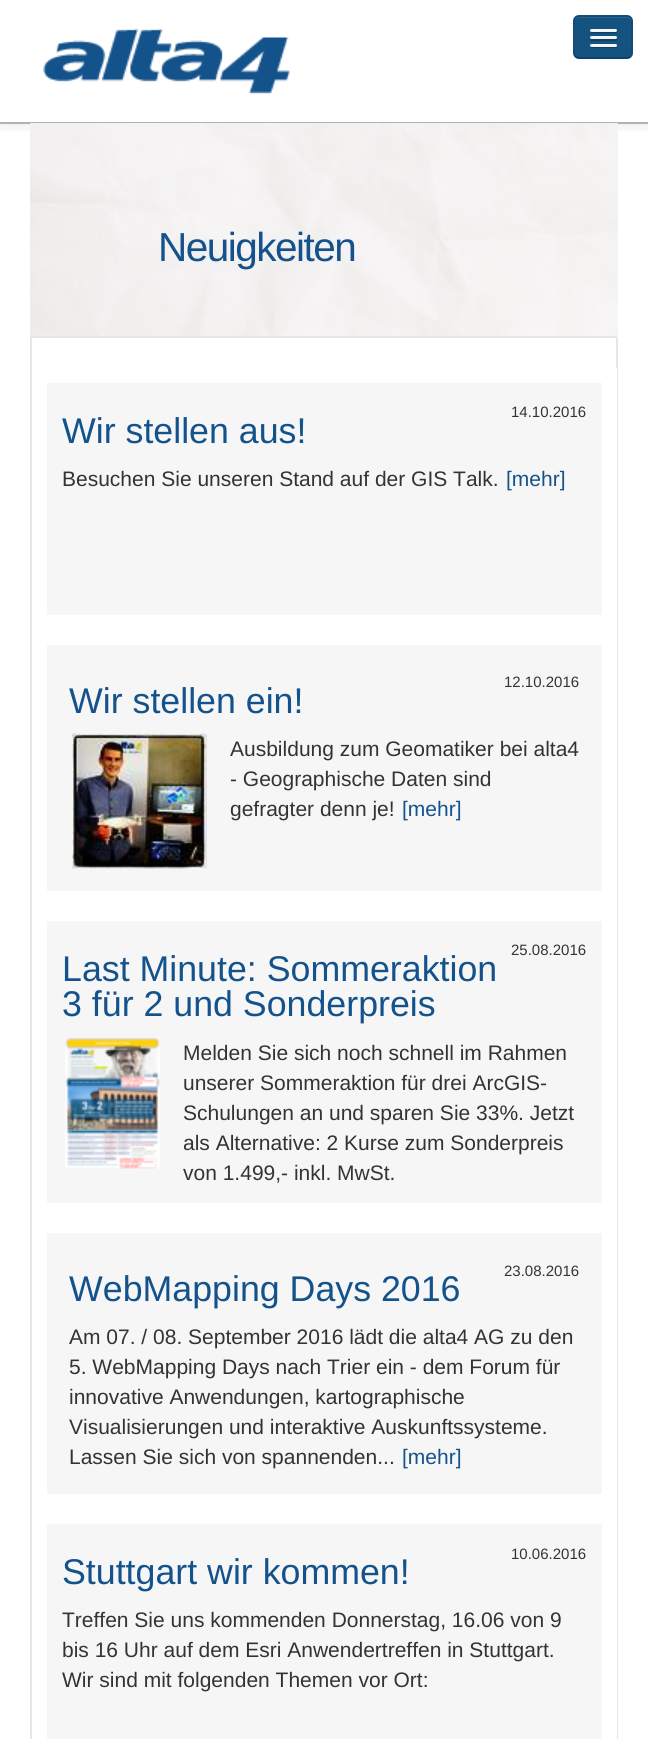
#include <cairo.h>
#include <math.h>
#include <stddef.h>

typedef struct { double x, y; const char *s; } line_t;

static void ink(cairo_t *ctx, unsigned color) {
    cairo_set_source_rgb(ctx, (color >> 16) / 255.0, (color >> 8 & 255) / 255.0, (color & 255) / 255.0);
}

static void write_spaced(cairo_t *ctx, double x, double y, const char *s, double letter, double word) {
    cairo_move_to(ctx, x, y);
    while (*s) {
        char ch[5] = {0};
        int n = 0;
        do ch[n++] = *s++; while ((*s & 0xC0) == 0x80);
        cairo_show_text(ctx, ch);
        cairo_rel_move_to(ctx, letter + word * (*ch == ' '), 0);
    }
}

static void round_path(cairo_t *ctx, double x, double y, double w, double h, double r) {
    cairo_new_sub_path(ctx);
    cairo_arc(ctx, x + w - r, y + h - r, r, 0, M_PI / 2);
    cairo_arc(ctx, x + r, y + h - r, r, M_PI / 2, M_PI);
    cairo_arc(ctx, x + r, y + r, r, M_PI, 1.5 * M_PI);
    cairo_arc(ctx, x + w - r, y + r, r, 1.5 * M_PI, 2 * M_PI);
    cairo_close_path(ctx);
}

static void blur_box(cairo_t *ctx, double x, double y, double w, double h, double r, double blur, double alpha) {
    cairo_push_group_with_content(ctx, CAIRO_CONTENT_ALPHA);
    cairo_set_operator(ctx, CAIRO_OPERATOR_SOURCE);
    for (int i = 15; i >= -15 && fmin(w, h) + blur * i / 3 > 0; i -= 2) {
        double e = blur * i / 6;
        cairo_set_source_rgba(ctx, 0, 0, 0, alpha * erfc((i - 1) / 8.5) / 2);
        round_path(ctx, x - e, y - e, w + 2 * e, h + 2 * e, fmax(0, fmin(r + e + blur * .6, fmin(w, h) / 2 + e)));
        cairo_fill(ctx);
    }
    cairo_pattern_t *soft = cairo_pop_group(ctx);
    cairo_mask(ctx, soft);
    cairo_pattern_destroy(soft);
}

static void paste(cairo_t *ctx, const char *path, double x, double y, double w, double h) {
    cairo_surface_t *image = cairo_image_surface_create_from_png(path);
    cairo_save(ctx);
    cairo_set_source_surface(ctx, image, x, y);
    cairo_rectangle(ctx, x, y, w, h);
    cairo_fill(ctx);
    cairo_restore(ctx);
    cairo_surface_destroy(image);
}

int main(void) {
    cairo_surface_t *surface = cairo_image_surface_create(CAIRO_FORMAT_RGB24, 648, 1739);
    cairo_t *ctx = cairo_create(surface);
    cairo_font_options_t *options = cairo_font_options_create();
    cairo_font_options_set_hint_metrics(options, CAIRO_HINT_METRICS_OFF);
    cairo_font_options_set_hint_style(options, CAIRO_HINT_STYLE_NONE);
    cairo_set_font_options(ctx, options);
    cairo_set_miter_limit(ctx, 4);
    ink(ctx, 0xFFFFFF);
    cairo_paint(ctx);
    cairo_save(ctx);
    cairo_rectangle(ctx, 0, 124, 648, 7);
    cairo_clip(ctx);
    ink(ctx, 0x000000);
    blur_box(ctx, 0, 2, 648, 123, 0, 7.5, 0.1);
    cairo_restore(ctx);
    ink(ctx, 0xB2B2B2);
    cairo_rectangle(ctx, 0, 122, 648, 2);
    cairo_fill(ctx);
    paste(ctx, "media/1.png", 43, 28, 247, 66);
    ink(ctx, 0x145280);
    round_path(ctx, 573, 15, 60, 44, 6);
    cairo_fill(ctx);
    ink(ctx, 0x2C638D);
    cairo_new_path(ctx);
    cairo_move_to(ctx, 579, 18);
    cairo_line_to(ctx, 627, 18);
    cairo_curve_to(ctx, 629, 18, 632, 20, 632, 22);
    cairo_curve_to(ctx, 632, 19, 630, 17, 627, 17);
    cairo_line_to(ctx, 580, 17);
    cairo_curve_to(ctx, 578, 17, 577, 18, 576, 19);
    cairo_close_path(ctx);
    cairo_fill(ctx);
    cairo_new_path(ctx);
    cairo_move_to(ctx, 630.5, 56);
    cairo_curve_to(ctx, 629.5, 57, 628.5, 58, 627, 58);
    cairo_line_to(ctx, 579, 58);
    cairo_curve_to(ctx, 577.5, 58, 576.5, 57, 575.5, 56);
    cairo_set_source_rgba(ctx, 0, 0, 0, 0.25);
    cairo_set_line_width(ctx, 1.5);
    cairo_stroke(ctx);
    cairo_new_path(ctx);
    cairo_move_to(ctx, 575.5, 56);
    cairo_curve_to(ctx, 574.5, 55, 574, 54, 574, 52.5);
    cairo_line_to(ctx, 574, 21);
    cairo_curve_to(ctx, 574, 19.5, 574.5, 18.5, 575.5, 17.5);
    cairo_curve_to(ctx, 576.5, 16.5, 577.5, 16, 579, 16);
    cairo_line_to(ctx, 627, 16);
    cairo_curve_to(ctx, 628.5, 16, 629.5, 16.5, 630.5, 17.5);
    cairo_curve_to(ctx, 631.5, 18.5, 632, 19.5, 632, 21);
    cairo_line_to(ctx, 632, 52.5);
    cairo_curve_to(ctx, 632, 54, 631.5, 55, 630.5, 56);
    cairo_set_source_rgba(ctx, 0, 0, 0, 0.1);
    cairo_stroke(ctx);
    ink(ctx, 0x0F3E60);
    cairo_new_path(ctx);
    cairo_move_to(ctx, 590, 31);
    cairo_curve_to(ctx, 589.5, 34, 595, 33, 595.5, 33);
    cairo_line_to(ctx, 615.5, 33);
    cairo_curve_to(ctx, 617, 33, 617.5, 31, 616.5, 30.5);
    cairo_line_to(ctx, 615.5, 31.5);
    cairo_curve_to(ctx, 614, 32, 590.5, 31.5, 590, 31);
    cairo_close_path(ctx);
    cairo_fill(ctx);
    ink(ctx, 0xF5F5F5);
    round_path(ctx, 590, 29, 27, 3, 1.5);
    cairo_fill(ctx);
    ink(ctx, 0x0F3E60);
    cairo_new_path(ctx);
    cairo_move_to(ctx, 590, 39);
    cairo_curve_to(ctx, 588.5, 42, 595.5, 41, 595.5, 41);
    cairo_line_to(ctx, 616, 41);
    cairo_curve_to(ctx, 617, 40.5, 617.5, 39, 616.5, 38);
    cairo_line_to(ctx, 615, 39);
    cairo_curve_to(ctx, 613, 39.5, 591, 39.5, 590, 39);
    cairo_close_path(ctx);
    cairo_fill(ctx);
    ink(ctx, 0xF5F5F5);
    round_path(ctx, 590, 36, 27, 3, 1.5);
    cairo_fill(ctx);
    ink(ctx, 0x0F3E60);
    cairo_new_path(ctx);
    cairo_move_to(ctx, 590, 46);
    cairo_curve_to(ctx, 589.5, 49, 595, 48, 595.5, 48);
    cairo_line_to(ctx, 615.5, 48);
    cairo_curve_to(ctx, 617, 48, 617.5, 46, 616.5, 45.5);
    cairo_line_to(ctx, 615.5, 46.5);
    cairo_curve_to(ctx, 614, 47, 590.5, 46.5, 590, 46);
    cairo_close_path(ctx);
    cairo_fill(ctx);
    ink(ctx, 0xF5F5F5);
    round_path(ctx, 590, 44, 27, 3, 1.5);
    cairo_fill(ctx);
    paste(ctx, "media/2.png", 30, 123, 588, 216);
    cairo_select_font_face(ctx, "Liberation Sans", CAIRO_FONT_SLANT_NORMAL, CAIRO_FONT_WEIGHT_NORMAL);
    cairo_set_font_size(ctx, 40.5);
    ink(ctx, 0x14528C);
    write_spaced(ctx, 158, 261, "Neuigkeiten", -1.5, 0);
    ink(ctx, 0xFFFFFF);
    round_path(ctx, 30, 336, 588, 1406, 3);
    cairo_fill(ctx);
    round_path(ctx, 31, 337, 586, 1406, 2);
    cairo_set_source_rgba(ctx, 0, 0, 0, 0.1);
    cairo_set_line_width(ctx, 2);
    cairo_stroke(ctx);
    ink(ctx, 0xF6F6F6);
    cairo_rectangle(ctx, 39.5, 375.5, 570, 247);
    cairo_fill_preserve(ctx);
    ink(ctx, 0xFFFFFF);
    cairo_set_line_width(ctx, 15);
    cairo_stroke(ctx);
    cairo_set_font_size(ctx, 15);
    ink(ctx, 0x333333);
    cairo_move_to(ctx, 511, 417);
    cairo_show_text(ctx, "14.10.2016");
    cairo_set_font_size(ctx, 35.75);
    ink(ctx, 0x14528C);
    cairo_move_to(ctx, 62, 443);
    cairo_show_text(ctx, "Wir stellen aus!");
    cairo_set_font_size(ctx, 21);
    ink(ctx, 0x333333);
    cairo_move_to(ctx, 62, 486);
    cairo_show_text(ctx, "Besuchen Sie unseren Stand auf der GIS Talk.");
    ink(ctx, 0x14528C);
    cairo_move_to(ctx, 506, 486);
    cairo_show_text(ctx, "[mehr]");
    ink(ctx, 0xF6F6F6);
    cairo_rectangle(ctx, 39.5, 637.5, 570, 261);
    cairo_fill_preserve(ctx);
    ink(ctx, 0xFFFFFF);
    cairo_stroke(ctx);
    cairo_set_font_size(ctx, 15);
    ink(ctx, 0x333333);
    cairo_move_to(ctx, 504, 687);
    cairo_show_text(ctx, "12.10.2016");
    cairo_set_font_size(ctx, 35.75);
    ink(ctx, 0x14528C);
    cairo_move_to(ctx, 69, 713);
    cairo_show_text(ctx, "Wir stellen ein!");
    paste(ctx, "media/3.png", 72, 733, 135, 136);
    cairo_set_font_size(ctx, 21);
    ink(ctx, 0x333333);
    {
        static const line_t items[] = {
            {230, 756, "Ausbildung zum Geomatiker bei alta4"},
            {230, 786, "- Geographische Daten sind"},
            {230, 816, "gefragter denn je!"},
        };
        for (size_t i = 0; i < sizeof items / sizeof *items; i++) {
            cairo_move_to(ctx, items[i].x, items[i].y);
            cairo_show_text(ctx, items[i].s);
        }
    }
    ink(ctx, 0x14528C);
    cairo_move_to(ctx, 402, 816);
    cairo_show_text(ctx, "[mehr]");
    ink(ctx, 0xF6F6F6);
    cairo_rectangle(ctx, 39.5, 913.5, 570, 297);
    cairo_fill_preserve(ctx);
    ink(ctx, 0xFFFFFF);
    cairo_stroke(ctx);
    cairo_set_font_size(ctx, 15);
    ink(ctx, 0x333333);
    cairo_move_to(ctx, 511, 955);
    cairo_show_text(ctx, "25.08.2016");
    cairo_set_font_size(ctx, 35.75);
    ink(ctx, 0x14528C);
    cairo_move_to(ctx, 62, 981);
    cairo_show_text(ctx, "Last Minute: Sommeraktion");
    cairo_move_to(ctx, 62, 1016);
    cairo_show_text(ctx, "3 für 2 und Sonderpreis");
    paste(ctx, "media/4.png", 65, 1037, 95, 132);
    cairo_set_font_size(ctx, 21);
    ink(ctx, 0x333333);
    {
        static const line_t items[] = {
            {183, 1060, "Melden Sie sich noch schnell im Rahmen"},
            {183, 1090, "unserer Sommeraktion für drei ArcGIS-"},
            {183, 1120, "Schulungen an und sparen Sie 33%. Jetzt"},
            {183, 1150, "als Alternative: 2 Kurse zum Sonderpreis"},
            {183, 1180, "von 1.499,- inkl. MwSt."},
        };
        for (size_t i = 0; i < sizeof items / sizeof *items; i++) {
            cairo_move_to(ctx, items[i].x, items[i].y);
            cairo_show_text(ctx, items[i].s);
        }
    }
    ink(ctx, 0xF6F6F6);
    cairo_rectangle(ctx, 39.5, 1225.5, 570, 276);
    cairo_fill_preserve(ctx);
    ink(ctx, 0xFFFFFF);
    cairo_stroke(ctx);
    cairo_set_font_size(ctx, 15);
    ink(ctx, 0x333333);
    cairo_move_to(ctx, 504, 1276);
    cairo_show_text(ctx, "23.08.2016");
    cairo_set_font_size(ctx, 35.75);
    ink(ctx, 0x14528C);
    cairo_move_to(ctx, 69, 1301);
    cairo_show_text(ctx, "WebMapping Days 2016");
    cairo_set_font_size(ctx, 21);
    ink(ctx, 0x333333);
    {
        static const line_t items[] = {
            {69, 1344, "Am 07. / 08. September 2016 lädt die alta4 AG zu den"},
            {69, 1374, "5. WebMapping Days nach Trier ein - dem Forum für"},
            {69, 1404, "innovative Anwendungen, kartographische"},
            {69, 1434, "Visualisierungen und interaktive Auskunftssysteme."},
            {69, 1464, "Lassen Sie sich von spannenden..."},
        };
        for (size_t i = 0; i < sizeof items / sizeof *items; i++) {
            cairo_move_to(ctx, items[i].x, items[i].y);
            cairo_show_text(ctx, items[i].s);
        }
    }
    ink(ctx, 0x14528C);
    cairo_move_to(ctx, 402, 1464);
    cairo_show_text(ctx, "[mehr]");
    ink(ctx, 0xF6F6F6);
    cairo_rectangle(ctx, 39.5, 1516.5, 570, 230);
    cairo_fill_preserve(ctx);
    ink(ctx, 0xFFFFFF);
    cairo_stroke(ctx);
    cairo_set_font_size(ctx, 15);
    ink(ctx, 0x333333);
    cairo_move_to(ctx, 511, 1559);
    cairo_show_text(ctx, "10.06.2016");
    cairo_set_font_size(ctx, 35.75);
    ink(ctx, 0x14528C);
    cairo_move_to(ctx, 62, 1584);
    cairo_show_text(ctx, "Stuttgart wir kommen!");
    cairo_set_font_size(ctx, 21);
    ink(ctx, 0x333333);
    {
        static const line_t items[] = {
            {62, 1627, "Treffen Sie uns kommenden Donnerstag, 16.06 von 9"},
            {62, 1657, "bis 16 Uhr auf dem Esri Anwendertreffen in Stuttgart."},
            {62, 1687, "Wir sind mit folgenden Themen vor Ort:"},
        };
        for (size_t i = 0; i < sizeof items / sizeof *items; i++) {
            cairo_move_to(ctx, items[i].x, items[i].y);
            cairo_show_text(ctx, items[i].s);
        }
    }
    cairo_surface_write_to_png(surface, "image.png");
    cairo_font_options_destroy(options);
    cairo_destroy(ctx);
    cairo_surface_destroy(surface);
    return 0;
}
